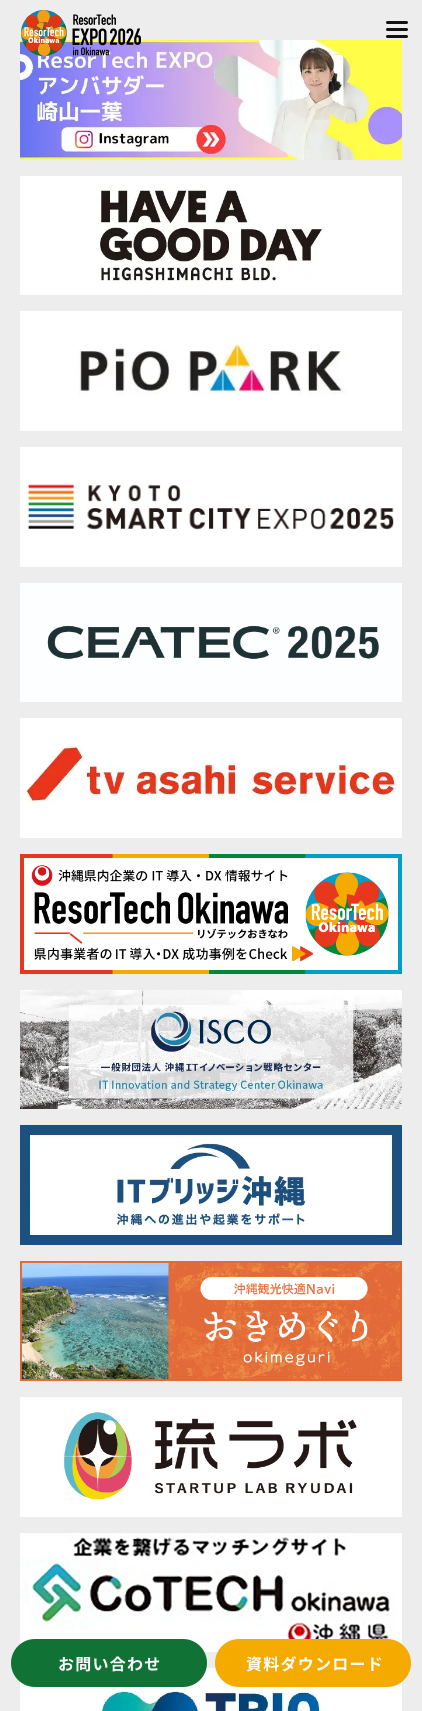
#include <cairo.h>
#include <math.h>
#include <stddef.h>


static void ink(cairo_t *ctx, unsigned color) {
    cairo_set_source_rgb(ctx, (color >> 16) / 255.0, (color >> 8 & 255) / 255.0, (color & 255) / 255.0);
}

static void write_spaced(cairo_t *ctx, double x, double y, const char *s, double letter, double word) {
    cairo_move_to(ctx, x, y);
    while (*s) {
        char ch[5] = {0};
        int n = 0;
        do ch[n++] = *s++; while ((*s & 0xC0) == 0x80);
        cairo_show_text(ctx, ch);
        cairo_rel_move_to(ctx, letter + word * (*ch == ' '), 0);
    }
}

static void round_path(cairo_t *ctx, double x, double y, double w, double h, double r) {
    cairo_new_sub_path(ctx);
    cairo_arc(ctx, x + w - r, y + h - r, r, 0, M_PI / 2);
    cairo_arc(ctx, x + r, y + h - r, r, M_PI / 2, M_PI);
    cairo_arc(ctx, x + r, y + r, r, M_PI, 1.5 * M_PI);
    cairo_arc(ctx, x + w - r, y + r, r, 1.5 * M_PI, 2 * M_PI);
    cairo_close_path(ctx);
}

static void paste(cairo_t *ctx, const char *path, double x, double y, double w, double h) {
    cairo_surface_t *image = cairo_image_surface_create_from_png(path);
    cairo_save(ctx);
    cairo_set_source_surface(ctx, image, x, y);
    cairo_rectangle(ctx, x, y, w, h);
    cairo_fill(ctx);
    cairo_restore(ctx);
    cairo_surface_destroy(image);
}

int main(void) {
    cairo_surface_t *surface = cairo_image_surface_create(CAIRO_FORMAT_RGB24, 422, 1711);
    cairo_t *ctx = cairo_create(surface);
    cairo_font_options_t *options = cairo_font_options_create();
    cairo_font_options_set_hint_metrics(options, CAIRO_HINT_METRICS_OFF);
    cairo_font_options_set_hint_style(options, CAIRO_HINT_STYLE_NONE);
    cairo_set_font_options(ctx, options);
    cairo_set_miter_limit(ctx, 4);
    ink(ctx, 0xEDEDED);
    cairo_paint(ctx);
    paste(ctx, "media/2.png", 20, 40, 382, 120);
    paste(ctx, "media/1.png", 21, 10, 120, 46);
    ink(ctx, 0x121211);
    round_path(ctx, 386, 21, 22, 3, 1.5);
    cairo_fill(ctx);
    round_path(ctx, 386, 28, 22, 3, 1.5);
    cairo_fill(ctx);
    round_path(ctx, 386, 35, 22, 3, 1.5);
    cairo_fill(ctx);
    paste(ctx, "media/3.png", 20, 176, 382, 119);
    paste(ctx, "media/4.png", 20, 311, 382, 120);
    paste(ctx, "media/5.png", 20, 447, 382, 120);
    paste(ctx, "media/6.png", 20, 583, 382, 119);
    paste(ctx, "media/7.png", 20, 718, 382, 120);
    paste(ctx, "media/8.png", 20, 854, 382, 120);
    paste(ctx, "media/9.png", 20, 990, 382, 119);
    paste(ctx, "media/10.png", 20, 1125, 382, 120);
    paste(ctx, "media/11.png", 20, 1261, 382, 120);
    paste(ctx, "media/12.png", 20, 1397, 382, 120);
    paste(ctx, "media/13.png", 20, 1533, 382, 119);
    paste(ctx, "media/14.png", 20, 1668, 382, 43);
    ink(ctx, 0x107235);
    round_path(ctx, 11, 1639, 196, 48, 24);
    cairo_fill(ctx);
    cairo_select_font_face(ctx, "Noto Sans JP", CAIRO_FONT_SLANT_NORMAL, CAIRO_FONT_WEIGHT_BOLD);
    cairo_set_font_size(ctx, 16);
    ink(ctx, 0xFFFFFF);
    write_spaced(ctx, 58, 1670, "お問い合わせ", 1.25, 0);
    ink(ctx, 0xF5AA00);
    round_path(ctx, 215, 1639, 196, 48, 24);
    cairo_fill(ctx);
    ink(ctx, 0xFFFFFF);
    write_spaced(ctx, 246, 1670, "資料ダウンロード", 1.25, 0);
    cairo_surface_write_to_png(surface, "image.png");
    cairo_font_options_destroy(options);
    cairo_destroy(ctx);
    cairo_surface_destroy(surface);
    return 0;
}
